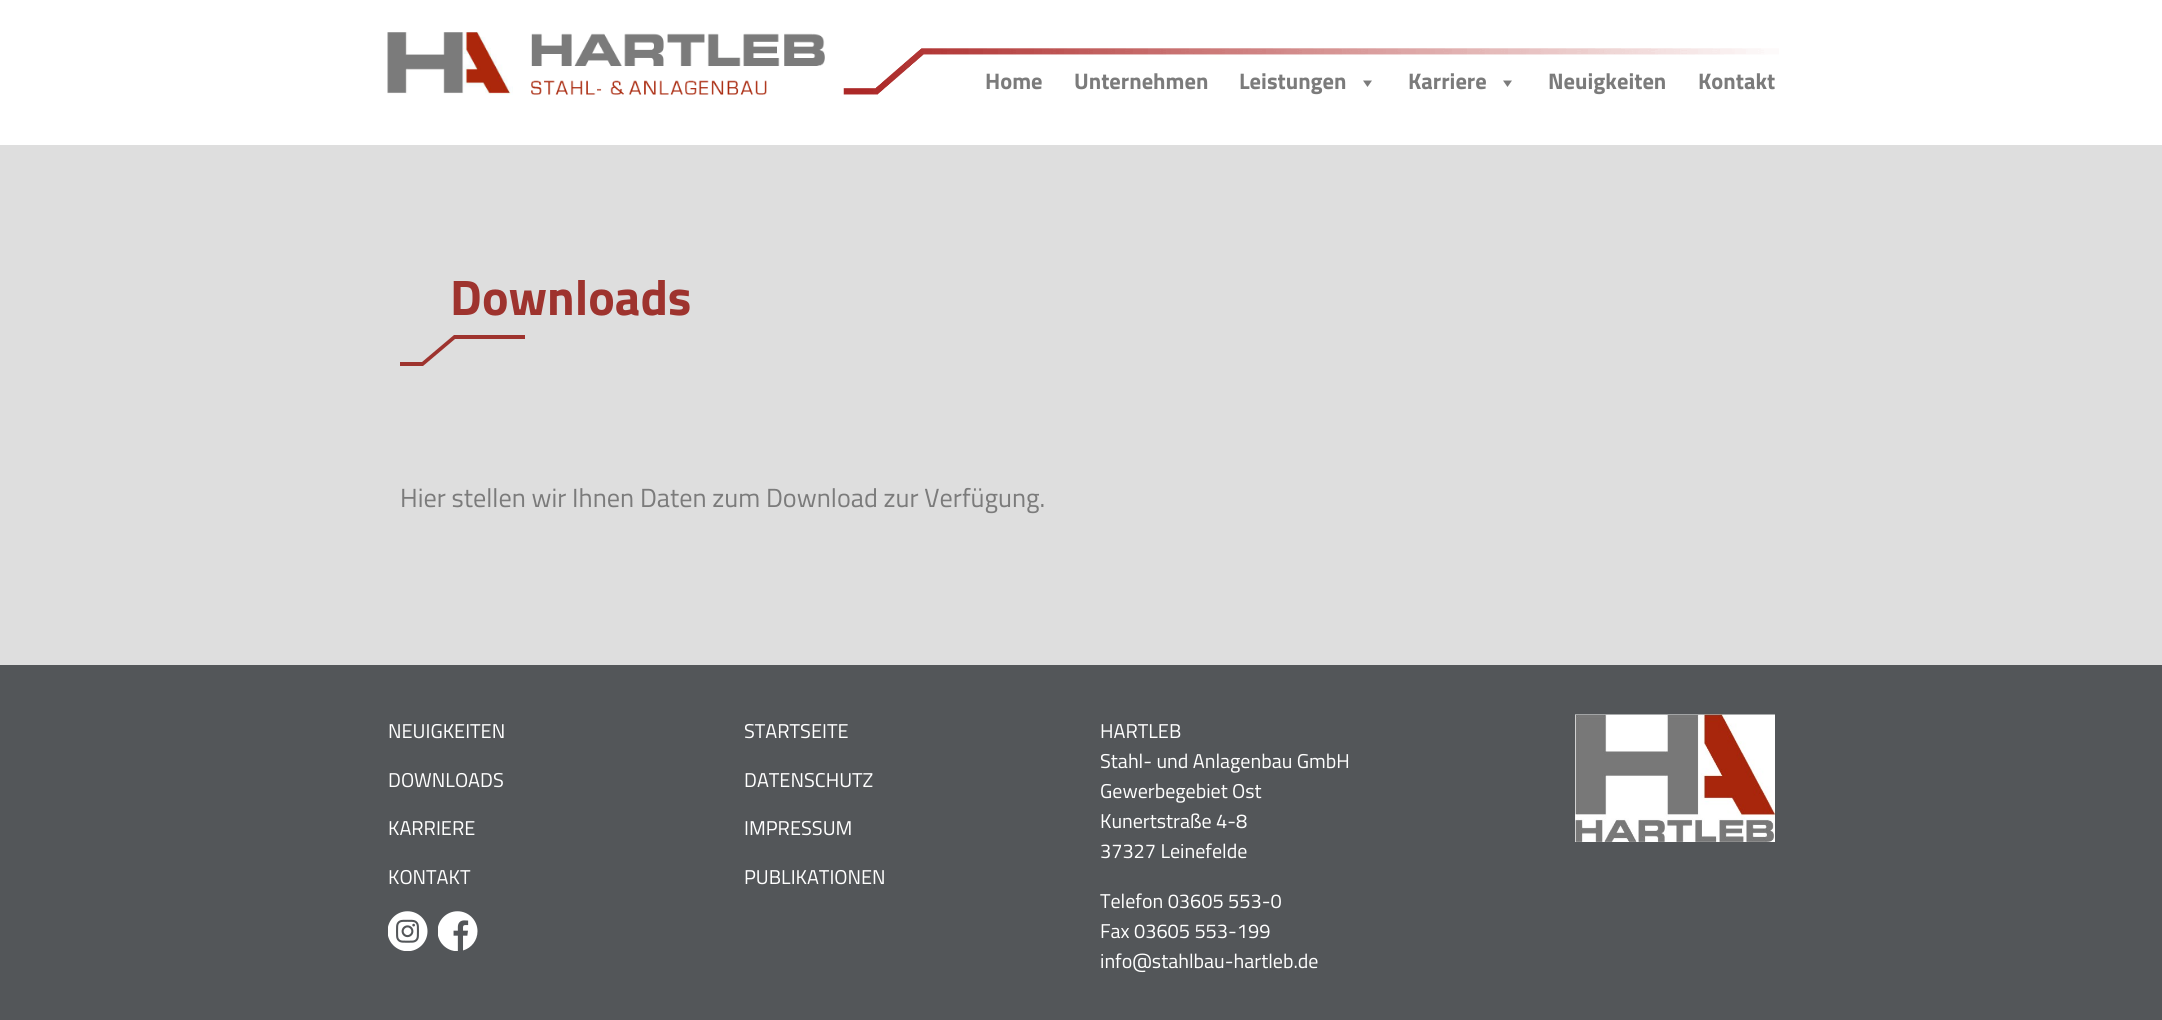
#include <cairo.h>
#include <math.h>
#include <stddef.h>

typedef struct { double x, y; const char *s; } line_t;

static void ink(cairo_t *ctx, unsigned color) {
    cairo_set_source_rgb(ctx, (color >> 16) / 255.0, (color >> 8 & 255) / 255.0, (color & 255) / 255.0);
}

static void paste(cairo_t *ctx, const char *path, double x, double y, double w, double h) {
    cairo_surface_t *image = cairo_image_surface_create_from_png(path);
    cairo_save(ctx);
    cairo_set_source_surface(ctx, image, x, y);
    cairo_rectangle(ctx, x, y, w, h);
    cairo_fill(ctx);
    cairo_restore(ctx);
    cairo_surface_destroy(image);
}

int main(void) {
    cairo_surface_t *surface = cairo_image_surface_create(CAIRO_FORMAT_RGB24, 2162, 1020);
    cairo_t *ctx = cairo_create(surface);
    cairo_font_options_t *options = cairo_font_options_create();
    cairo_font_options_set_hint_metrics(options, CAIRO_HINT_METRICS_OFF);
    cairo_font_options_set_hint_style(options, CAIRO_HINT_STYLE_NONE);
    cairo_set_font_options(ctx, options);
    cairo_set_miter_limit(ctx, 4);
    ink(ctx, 0xDEDEDE);
    cairo_paint(ctx);
    ink(ctx, 0xFFFFFF);
    cairo_rectangle(ctx, 0, 0, 2162, 145);
    cairo_fill(ctx);
    paste(ctx, "media/1.png", 387, 32, 438, 63);
    paste(ctx, "media/2.png", 843, 48, 936, 47);
    cairo_select_font_face(ctx, "Titillium Web", CAIRO_FONT_SLANT_NORMAL, CAIRO_FONT_WEIGHT_BOLD);
    cairo_set_font_size(ctx, 22.5);
    ink(ctx, 0x7B7B7B);
    {
        static const line_t items[] = {
            {985, 89, "Home"},
            {1074, 89, "Unternehmen"},
            {1239, 89, "Leistungen"},
        };
        for (size_t i = 0; i < sizeof items / sizeof *items; i++) {
            cairo_move_to(ctx, items[i].x, items[i].y);
            cairo_show_text(ctx, items[i].s);
        }
    }
    cairo_new_path(ctx);
    cairo_move_to(ctx, 1372, 80.5);
    cairo_line_to(ctx, 1367.5, 87);
    cairo_line_to(ctx, 1363, 80.5);
    cairo_close_path(ctx);
    cairo_fill(ctx);
    cairo_move_to(ctx, 1408, 89);
    cairo_show_text(ctx, "Karriere");
    cairo_new_path(ctx);
    cairo_move_to(ctx, 1512, 80.5);
    cairo_line_to(ctx, 1507.5, 87);
    cairo_line_to(ctx, 1503, 80.5);
    cairo_close_path(ctx);
    cairo_fill(ctx);
    cairo_move_to(ctx, 1548, 89);
    cairo_show_text(ctx, "Neuigkeiten");
    cairo_move_to(ctx, 1698, 89);
    cairo_show_text(ctx, "Kontakt");
    cairo_set_font_size(ctx, 50);
    ink(ctx, 0x9E332E);
    cairo_move_to(ctx, 450, 315);
    cairo_show_text(ctx, "Downloads");
    cairo_new_path(ctx);
    cairo_move_to(ctx, 400, 366);
    cairo_line_to(ctx, 423, 366);
    cairo_line_to(ctx, 455, 339);
    cairo_line_to(ctx, 525, 339);
    cairo_line_to(ctx, 525, 335);
    cairo_line_to(ctx, 454, 335);
    cairo_line_to(ctx, 422, 362);
    cairo_line_to(ctx, 400, 362);
    cairo_close_path(ctx);
    cairo_fill(ctx);
    cairo_select_font_face(ctx, "Titillium Web", CAIRO_FONT_SLANT_NORMAL, CAIRO_FONT_WEIGHT_NORMAL);
    cairo_set_font_size(ctx, 26.25);
    ink(ctx, 0x7B7B7B);
    cairo_move_to(ctx, 400, 507);
    cairo_show_text(ctx, "Hier stellen wir Ihnen Daten zum Download zur Verfügung.");
    ink(ctx, 0x535659);
    cairo_rectangle(ctx, 0, 665, 2162, 355);
    cairo_fill(ctx);
    cairo_set_font_size(ctx, 20);
    ink(ctx, 0xFFFFFF);
    {
        static const line_t items[] = {
            {388, 738, "NEUIGKEITEN"},
            {388, 787, "DOWNLOADS"},
            {388, 835, "KARRIERE"},
            {388, 884, "KONTAKT"},
        };
        for (size_t i = 0; i < sizeof items / sizeof *items; i++) {
            cairo_move_to(ctx, items[i].x, items[i].y);
            cairo_show_text(ctx, items[i].s);
        }
    }
    paste(ctx, "media/3.png", 388, 911, 40, 40);
    paste(ctx, "media/4.png", 438, 911, 40, 40);
    {
        static const line_t items[] = {
            {744, 738, "STARTSEITE"},
            {744, 787, "DATENSCHUTZ"},
            {744, 835, "IMPRESSUM"},
            {744, 884, "PUBLIKATIONEN"},
            {1100, 738, "HARTLEB"},
            {1100, 768, "Stahl- und Anlagenbau GmbH"},
            {1100, 798, "Gewerbegebiet Ost"},
            {1100, 828, "Kunertstraße 4-8"},
            {1100, 858, "37327 Leinefelde"},
            {1100, 908, "Telefon 03605 553-0"},
            {1100, 938, "Fax 03605 553-199"},
            {1100, 968, "info@stahlbau-hartleb.de"},
        };
        for (size_t i = 0; i < sizeof items / sizeof *items; i++) {
            cairo_move_to(ctx, items[i].x, items[i].y);
            cairo_show_text(ctx, items[i].s);
        }
    }
    paste(ctx, "media/5.png", 1575, 714, 200, 128);
    cairo_surface_write_to_png(surface, "image.png");
    cairo_font_options_destroy(options);
    cairo_destroy(ctx);
    cairo_surface_destroy(surface);
    return 0;
}
